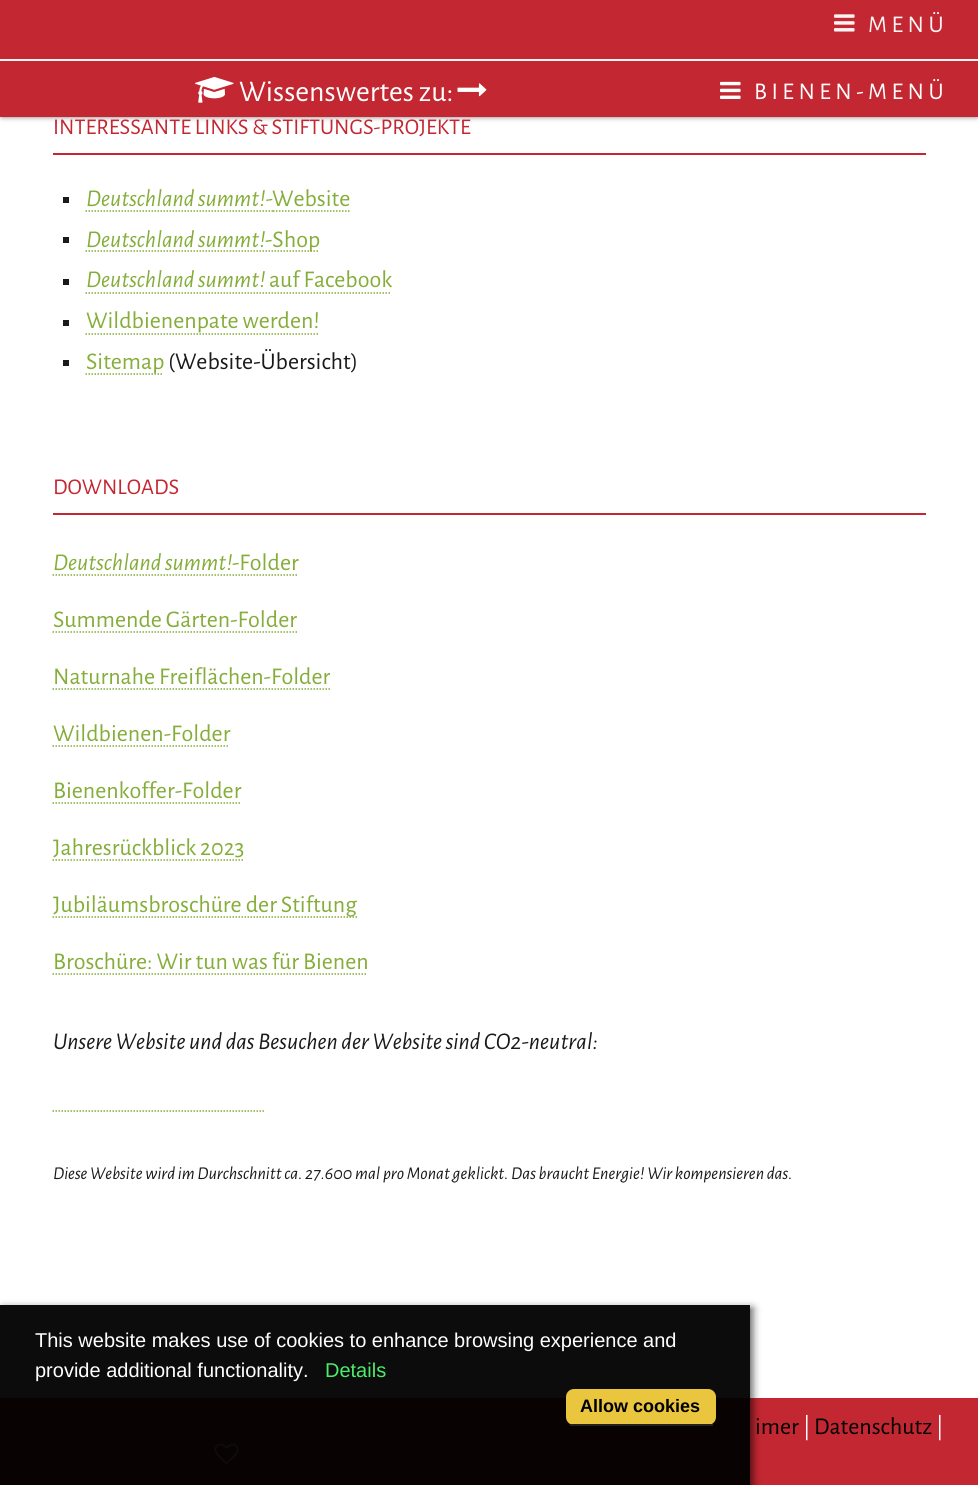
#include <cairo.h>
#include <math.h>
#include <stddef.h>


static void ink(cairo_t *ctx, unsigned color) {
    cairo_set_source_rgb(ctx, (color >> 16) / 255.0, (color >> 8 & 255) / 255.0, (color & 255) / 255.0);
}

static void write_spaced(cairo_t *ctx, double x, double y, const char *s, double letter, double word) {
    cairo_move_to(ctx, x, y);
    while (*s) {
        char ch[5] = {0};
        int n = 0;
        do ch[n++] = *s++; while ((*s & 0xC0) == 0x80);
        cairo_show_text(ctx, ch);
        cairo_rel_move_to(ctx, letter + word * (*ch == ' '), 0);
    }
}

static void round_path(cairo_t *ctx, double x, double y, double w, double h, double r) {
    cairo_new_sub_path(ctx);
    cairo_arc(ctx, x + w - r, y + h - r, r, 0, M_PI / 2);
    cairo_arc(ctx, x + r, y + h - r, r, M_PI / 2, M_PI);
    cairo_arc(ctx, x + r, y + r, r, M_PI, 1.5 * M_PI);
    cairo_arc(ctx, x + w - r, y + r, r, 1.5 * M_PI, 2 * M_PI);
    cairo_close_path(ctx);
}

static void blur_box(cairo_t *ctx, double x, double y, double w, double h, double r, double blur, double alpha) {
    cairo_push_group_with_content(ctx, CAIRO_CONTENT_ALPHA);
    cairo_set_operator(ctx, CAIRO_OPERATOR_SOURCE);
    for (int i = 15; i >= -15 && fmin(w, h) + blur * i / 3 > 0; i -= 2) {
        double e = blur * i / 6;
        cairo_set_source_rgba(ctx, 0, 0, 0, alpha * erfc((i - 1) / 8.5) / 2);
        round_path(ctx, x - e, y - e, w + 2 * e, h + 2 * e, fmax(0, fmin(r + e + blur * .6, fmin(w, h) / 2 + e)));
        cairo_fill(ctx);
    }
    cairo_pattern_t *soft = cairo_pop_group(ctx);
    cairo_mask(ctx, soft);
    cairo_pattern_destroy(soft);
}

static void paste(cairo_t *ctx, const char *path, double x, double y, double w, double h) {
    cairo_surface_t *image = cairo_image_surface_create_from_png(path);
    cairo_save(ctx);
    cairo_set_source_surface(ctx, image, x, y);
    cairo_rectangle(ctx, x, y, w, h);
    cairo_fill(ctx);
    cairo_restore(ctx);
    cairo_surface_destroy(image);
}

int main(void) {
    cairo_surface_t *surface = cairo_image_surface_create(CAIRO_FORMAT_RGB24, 978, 1485);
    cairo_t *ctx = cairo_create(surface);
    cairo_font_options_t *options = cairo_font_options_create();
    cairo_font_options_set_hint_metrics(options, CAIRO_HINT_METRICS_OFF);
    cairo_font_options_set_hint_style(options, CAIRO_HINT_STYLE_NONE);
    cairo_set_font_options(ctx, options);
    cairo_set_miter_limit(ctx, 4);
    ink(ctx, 0xFFFFFF);
    cairo_paint(ctx);
    ink(ctx, 0x4D4D4D);
    blur_box(ctx, 2, 2, 975, 114, 0, 3, 1);
    ink(ctx, 0xC32731);
    cairo_rectangle(ctx, 0, 0, 978, 117);
    cairo_fill(ctx);
    ink(ctx, 0xFCF4F5);
    cairo_rectangle(ctx, 0, 59, 978, 2);
    cairo_fill(ctx);
    paste(ctx, "media/1.png", 834, 14, 21, 18);
    cairo_select_font_face(ctx, "Alegreya Sans", CAIRO_FONT_SLANT_NORMAL, CAIRO_FONT_WEIGHT_NORMAL);
    cairo_set_font_size(ctx, 24);
    write_spaced(ctx, 868, 32, "MENÜ", 4.5, 0);
    paste(ctx, "media/2.png", 195, 76, 39, 27);
    cairo_set_font_size(ctx, 30);
    ink(ctx, 0xFFFFFF);
    cairo_move_to(ctx, 239, 101);
    cairo_show_text(ctx, "Wissenswertes zu:");
    paste(ctx, "media/3.png", 457, 83, 30, 14);
    paste(ctx, "media/4.png", 720, 81, 21, 18);
    cairo_set_font_size(ctx, 24);
    write_spaced(ctx, 754, 99, "BIENEN-MENÜ", 4.5, 0);
    ink(ctx, 0xC32731);
    cairo_rectangle(ctx, 53, 153, 873, 2);
    cairo_fill(ctx);
    cairo_set_font_size(ctx, 22.5);
    cairo_move_to(ctx, 53, 134);
    cairo_show_text(ctx, "INTERESSANTE LINKS & STIFTUNGS-PROJEKTE");
    ink(ctx, 0x1A1A1A);
    cairo_rectangle(ctx, 63, 197, 6, 6);
    cairo_fill(ctx);
    cairo_select_font_face(ctx, "Alegreya Sans", CAIRO_FONT_SLANT_ITALIC, CAIRO_FONT_WEIGHT_NORMAL);
    cairo_set_font_size(ctx, 24);
    ink(ctx, 0x85AD39);
    cairo_move_to(ctx, 86, 206);
    cairo_show_text(ctx, "Deutschland summt!-");
    cairo_new_path(ctx);
    cairo_move_to(ctx, 85.5, 211);
    cairo_line_to(ctx, 273, 211);
    cairo_set_line_width(ctx, 1.5);
    cairo_set_dash(ctx, (double[]){1.5, 1.5}, 2, 0);
    cairo_stroke(ctx);
    cairo_select_font_face(ctx, "Alegreya Sans", CAIRO_FONT_SLANT_NORMAL, CAIRO_FONT_WEIGHT_NORMAL);
    cairo_move_to(ctx, 272, 206);
    cairo_show_text(ctx, "Website");
    cairo_new_path(ctx);
    cairo_move_to(ctx, 273, 211);
    cairo_line_to(ctx, 351, 211);
    cairo_stroke(ctx);
    ink(ctx, 0x1A1A1A);
    cairo_rectangle(ctx, 63, 237, 6, 6);
    cairo_fill(ctx);
    cairo_select_font_face(ctx, "Alegreya Sans", CAIRO_FONT_SLANT_ITALIC, CAIRO_FONT_WEIGHT_NORMAL);
    ink(ctx, 0x85AD39);
    cairo_move_to(ctx, 86, 247);
    cairo_show_text(ctx, "Deutschland summt!");
    cairo_new_path(ctx);
    cairo_move_to(ctx, 265.5, 251);
    cairo_line_to(ctx, 319.5, 251);
    cairo_stroke(ctx);
    cairo_select_font_face(ctx, "Alegreya Sans", CAIRO_FONT_SLANT_NORMAL, CAIRO_FONT_WEIGHT_NORMAL);
    cairo_move_to(ctx, 265, 247);
    cairo_show_text(ctx, "-Shop");
    cairo_new_path(ctx);
    cairo_move_to(ctx, 85.5, 251);
    cairo_line_to(ctx, 265.5, 251);
    cairo_stroke(ctx);
    ink(ctx, 0x1A1A1A);
    cairo_rectangle(ctx, 63, 279, 6, 6);
    cairo_fill(ctx);
    cairo_select_font_face(ctx, "Alegreya Sans", CAIRO_FONT_SLANT_ITALIC, CAIRO_FONT_WEIGHT_NORMAL);
    ink(ctx, 0x85AD39);
    cairo_move_to(ctx, 86, 287);
    cairo_show_text(ctx, "Deutschland summt!");
    cairo_new_path(ctx);
    cairo_move_to(ctx, 85.5, 293);
    cairo_line_to(ctx, 265.5, 293);
    cairo_stroke(ctx);
    cairo_new_path(ctx);
    cairo_move_to(ctx, 265.5, 293);
    cairo_line_to(ctx, 391.5, 293);
    cairo_stroke(ctx);
    cairo_select_font_face(ctx, "Alegreya Sans", CAIRO_FONT_SLANT_NORMAL, CAIRO_FONT_WEIGHT_NORMAL);
    cairo_move_to(ctx, 269, 287);
    cairo_show_text(ctx, "auf Facebook");
    ink(ctx, 0x1A1A1A);
    cairo_rectangle(ctx, 63, 320, 6, 6);
    cairo_fill(ctx);
    ink(ctx, 0x85AD39);
    cairo_move_to(ctx, 86, 328);
    cairo_show_text(ctx, "Wildbienenpate werden!");
    cairo_new_path(ctx);
    cairo_move_to(ctx, 85.5, 334);
    cairo_line_to(ctx, 319.5, 334);
    cairo_stroke(ctx);
    ink(ctx, 0x1A1A1A);
    cairo_rectangle(ctx, 63, 360, 6, 6);
    cairo_fill(ctx);
    cairo_new_path(ctx);
    cairo_move_to(ctx, 85.5, 374);
    cairo_line_to(ctx, 163.5, 374);
    ink(ctx, 0x85AD39);
    cairo_stroke(ctx);
    cairo_move_to(ctx, 86, 369);
    cairo_show_text(ctx, "Sitemap");
    ink(ctx, 0x1A1A1A);
    cairo_move_to(ctx, 168, 369);
    cairo_show_text(ctx, "(Website-Übersicht)");
    ink(ctx, 0xC32731);
    cairo_rectangle(ctx, 53, 513, 873, 2);
    cairo_fill(ctx);
    cairo_set_font_size(ctx, 22.5);
    cairo_move_to(ctx, 53, 494);
    cairo_show_text(ctx, "DOWNLOADS");
    cairo_select_font_face(ctx, "Alegreya Sans", CAIRO_FONT_SLANT_ITALIC, CAIRO_FONT_WEIGHT_NORMAL);
    cairo_set_font_size(ctx, 24);
    ink(ctx, 0x85AD39);
    cairo_move_to(ctx, 53, 570);
    cairo_show_text(ctx, "Deutschland summt!");
    cairo_new_path(ctx);
    cairo_move_to(ctx, 52.5, 575);
    cairo_line_to(ctx, 232.5, 575);
    cairo_stroke(ctx);
    cairo_new_path(ctx);
    cairo_move_to(ctx, 232.5, 575);
    cairo_line_to(ctx, 298.5, 575);
    cairo_stroke(ctx);
    cairo_select_font_face(ctx, "Alegreya Sans", CAIRO_FONT_SLANT_NORMAL, CAIRO_FONT_WEIGHT_NORMAL);
    cairo_move_to(ctx, 232, 570);
    cairo_show_text(ctx, "-Folder");
    cairo_move_to(ctx, 53, 627);
    cairo_show_text(ctx, "Summende Gärten-Folder");
    cairo_new_path(ctx);
    cairo_move_to(ctx, 52.5, 632);
    cairo_line_to(ctx, 297, 632);
    cairo_stroke(ctx);
    cairo_move_to(ctx, 53, 684);
    cairo_show_text(ctx, "Naturnahe Freiflächen-Folder");
    cairo_new_path(ctx);
    cairo_move_to(ctx, 52.5, 689);
    cairo_line_to(ctx, 330, 689);
    cairo_stroke(ctx);
    cairo_move_to(ctx, 53, 741);
    cairo_show_text(ctx, "Wildbienen-Folder");
    cairo_new_path(ctx);
    cairo_move_to(ctx, 52.5, 746);
    cairo_line_to(ctx, 229.5, 746);
    cairo_stroke(ctx);
    cairo_move_to(ctx, 53, 798);
    cairo_show_text(ctx, "Bienenkoffer-Folder");
    cairo_new_path(ctx);
    cairo_move_to(ctx, 52.5, 803);
    cairo_line_to(ctx, 241.5, 803);
    cairo_stroke(ctx);
    cairo_move_to(ctx, 53, 855);
    cairo_show_text(ctx, "Jahresrückblick 2023");
    cairo_new_path(ctx);
    cairo_move_to(ctx, 52.5, 860);
    cairo_line_to(ctx, 244.5, 860);
    cairo_stroke(ctx);
    cairo_new_path(ctx);
    cairo_move_to(ctx, 52.5, 917);
    cairo_line_to(ctx, 357, 917);
    cairo_stroke(ctx);
    cairo_move_to(ctx, 53, 912);
    cairo_show_text(ctx, "Jubiläumsbroschüre der Stiftung");
    cairo_move_to(ctx, 53, 969);
    cairo_show_text(ctx, "Broschüre: Wir tun was für Bienen");
    cairo_new_path(ctx);
    cairo_move_to(ctx, 52.5, 974);
    cairo_line_to(ctx, 367.5, 974);
    cairo_stroke(ctx);
    cairo_select_font_face(ctx, "Alegreya Sans", CAIRO_FONT_SLANT_ITALIC, CAIRO_FONT_WEIGHT_NORMAL);
    ink(ctx, 0x1A1A1A);
    cairo_move_to(ctx, 53, 1049);
    cairo_show_text(ctx, "Unsere Website und das Besuchen der Website sind CO2-neutral:");
    cairo_new_path(ctx);
    cairo_move_to(ctx, 52.5, 1111);
    cairo_line_to(ctx, 264, 1111);
    ink(ctx, 0x85AD39);
    cairo_stroke(ctx);
    cairo_set_font_size(ctx, 18);
    ink(ctx, 0x1A1A1A);
    cairo_move_to(ctx, 53, 1179);
    cairo_show_text(ctx, "Diese Website wird im Durchschnitt ca. 27.600 mal pro Monat geklickt. Das braucht Energie! Wir kompensieren das.");
    ink(ctx, 0xC32731);
    cairo_rectangle(ctx, 0, 1398, 978, 87);
    cairo_fill(ctx);
    cairo_select_font_face(ctx, "Alegreya Sans", CAIRO_FONT_SLANT_NORMAL, CAIRO_FONT_WEIGHT_NORMAL);
    cairo_set_font_size(ctx, 24);
    ink(ctx, 0x000000);
    cairo_move_to(ctx, 755, 1434);
    cairo_show_text(ctx, "imer");
    ink(ctx, 0xFFFFFF);
    cairo_move_to(ctx, 803, 1434);
    cairo_show_text(ctx, "|");
    ink(ctx, 0x000000);
    cairo_move_to(ctx, 814, 1434);
    cairo_show_text(ctx, "Datenschutz");
    ink(ctx, 0xFFFFFF);
    cairo_move_to(ctx, 936, 1434);
    cairo_show_text(ctx, "|");
    paste(ctx, "media/5.png", 214, 1443, 25, 22);
    cairo_save(ctx);
    cairo_set_fill_rule(ctx, CAIRO_FILL_RULE_EVEN_ODD);
    cairo_new_path(ctx);
    cairo_move_to(ctx, 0, 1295);
    cairo_line_to(ctx, 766, 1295);
    cairo_line_to(ctx, 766, 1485);
    cairo_line_to(ctx, 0, 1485);
    cairo_close_path(ctx);
    cairo_move_to(ctx, 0, 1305);
    cairo_line_to(ctx, 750, 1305);
    cairo_line_to(ctx, 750, 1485);
    cairo_line_to(ctx, 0, 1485);
    cairo_close_path(ctx);
    cairo_clip(ctx);
    ink(ctx, 0x000000);
    blur_box(ctx, 3, 1308, 750, 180, 0, 4, 0.6);
    cairo_restore(ctx);
    cairo_set_source_rgba(ctx, 0, 0, 0, 0.95);
    cairo_rectangle(ctx, 0, 1305, 750, 180);
    cairo_fill(ctx);
    cairo_select_font_face(ctx, "Liberation Sans", CAIRO_FONT_SLANT_NORMAL, CAIRO_FONT_WEIGHT_NORMAL);
    cairo_set_font_size(ctx, 20);
    ink(ctx, 0xFFFFFF);
    cairo_move_to(ctx, 35, 1347);
    cairo_show_text(ctx, "This website makes use of cookies to enhance browsing experience and");
    cairo_move_to(ctx, 35, 1377);
    cairo_show_text(ctx, "provide additional functionality.");
    ink(ctx, 0x4BEC69);
    cairo_move_to(ctx, 325, 1377);
    cairo_show_text(ctx, "Details");
    ink(ctx, 0xEAC53E);
    round_path(ctx, 566, 1389, 150, 36, 8);
    cairo_fill(ctx);
    ink(ctx, 0x222222);
    cairo_rectangle(ctx, 570, 1424, 143, 2);
    cairo_fill(ctx);
    cairo_select_font_face(ctx, "Liberation Sans", CAIRO_FONT_SLANT_NORMAL, CAIRO_FONT_WEIGHT_BOLD);
    cairo_set_font_size(ctx, 18);
    ink(ctx, 0x000000);
    cairo_move_to(ctx, 580, 1412);
    cairo_show_text(ctx, "Allow cookies");
    cairo_surface_write_to_png(surface, "image.png");
    cairo_font_options_destroy(options);
    cairo_destroy(ctx);
    cairo_surface_destroy(surface);
    return 0;
}
